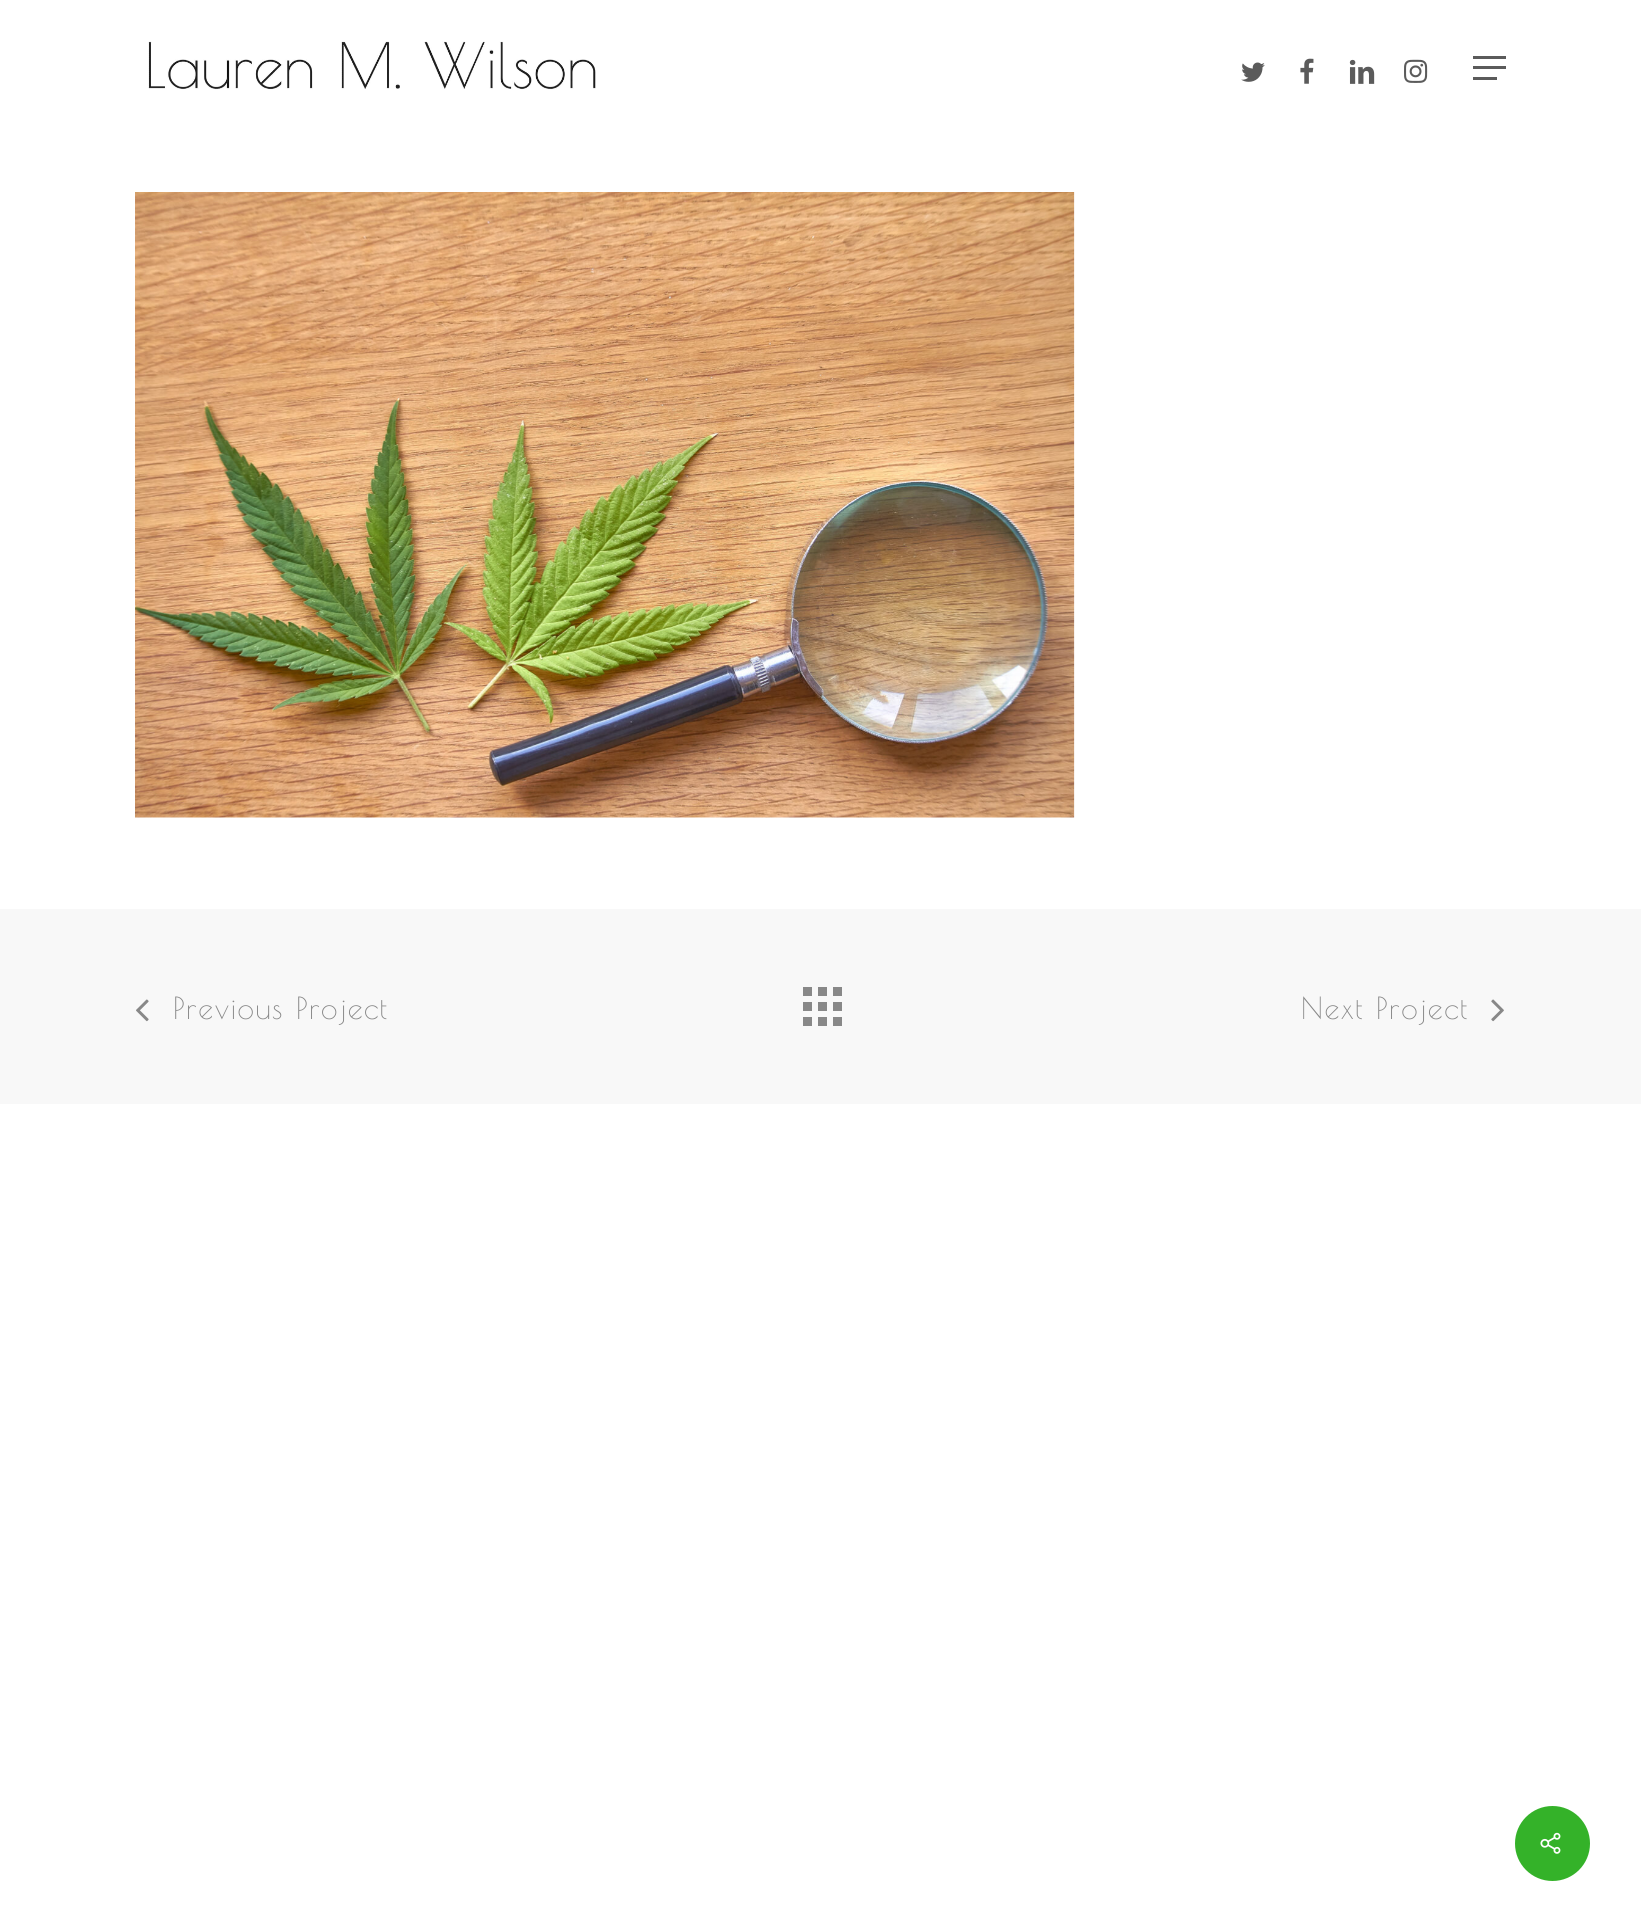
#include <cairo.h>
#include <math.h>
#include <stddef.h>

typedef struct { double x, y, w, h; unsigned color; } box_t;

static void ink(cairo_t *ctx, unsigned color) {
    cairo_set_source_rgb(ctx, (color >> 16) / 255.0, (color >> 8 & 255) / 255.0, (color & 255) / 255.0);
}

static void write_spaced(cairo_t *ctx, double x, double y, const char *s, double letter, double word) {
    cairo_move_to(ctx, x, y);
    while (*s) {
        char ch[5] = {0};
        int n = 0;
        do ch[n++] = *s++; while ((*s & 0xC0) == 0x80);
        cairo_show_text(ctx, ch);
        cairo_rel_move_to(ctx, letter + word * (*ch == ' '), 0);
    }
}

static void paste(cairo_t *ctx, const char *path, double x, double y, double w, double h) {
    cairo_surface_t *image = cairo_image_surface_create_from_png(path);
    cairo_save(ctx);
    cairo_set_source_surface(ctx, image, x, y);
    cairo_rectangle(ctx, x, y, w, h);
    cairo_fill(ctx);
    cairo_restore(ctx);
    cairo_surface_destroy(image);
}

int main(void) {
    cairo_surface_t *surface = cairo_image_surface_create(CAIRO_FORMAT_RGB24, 1641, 1931);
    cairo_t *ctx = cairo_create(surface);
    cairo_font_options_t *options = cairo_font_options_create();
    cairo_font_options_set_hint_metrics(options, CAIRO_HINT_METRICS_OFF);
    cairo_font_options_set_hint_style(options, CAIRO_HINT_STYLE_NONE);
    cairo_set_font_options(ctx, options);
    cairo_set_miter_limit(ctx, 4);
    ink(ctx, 0xFFFFFF);
    cairo_paint(ctx);
    paste(ctx, "media/1.png", 148, 41, 448, 49);
    paste(ctx, "media/2.png", 1241, 62, 24, 20);
    paste(ctx, "media/3.png", 1300, 58, 14, 26);
    paste(ctx, "media/4.png", 1349, 59, 26, 25);
    paste(ctx, "media/5.png", 1404, 59, 24, 24);
    {
        static const box_t items[] = {
            {1473, 56, 33, 3, 0x5B5B5B},
            {1473, 77, 24, 3, 0x5B5B5B},
            {1473, 66, 33, 3, 0x5B5B5B},
        };
        for (size_t i = 0; i < sizeof items / sizeof *items; i++) {
            ink(ctx, items[i].color);
            cairo_rectangle(ctx, items[i].x, items[i].y, items[i].w, items[i].h);
            cairo_fill(ctx);
        }
    }
    paste(ctx, "media/6.png", 135, 192, 940, 626);
    {
        static const box_t items[] = {
            {0, 909, 1641, 195, 0xF8F8F8},
            {833, 1017, 9, 9, 0x888888},
            {818, 1017, 9, 9, 0x888888},
            {803, 987, 9, 9, 0x888888},
            {818, 987, 9, 9, 0x888888},
            {833, 987, 9, 9, 0x888888},
            {833, 1002, 9, 9, 0x888888},
            {803, 1017, 9, 9, 0x888888},
            {803, 1002, 9, 9, 0x888888},
            {818, 1002, 9, 9, 0x888888},
        };
        for (size_t i = 0; i < sizeof items / sizeof *items; i++) {
            ink(ctx, items[i].color);
            cairo_rectangle(ctx, items[i].x, items[i].y, items[i].w, items[i].h);
            cairo_fill(ctx);
        }
    }
    paste(ctx, "media/7.png", 136, 999, 13, 23);
    cairo_select_font_face(ctx, "Poiret One", CAIRO_FONT_SLANT_NORMAL, CAIRO_FONT_WEIGHT_NORMAL);
    cairo_set_font_size(ctx, 30);
    write_spaced(ctx, 173, 1019, "Previous Project", 1.5, 0);
    write_spaced(ctx, 1301, 1019, "Next Project", 1.5, 0);
    paste(ctx, "media/8.png", 1491, 999, 13, 23);
    ink(ctx, 0x34B229);
    cairo_arc(ctx, 1552.5, 1843.5, 37.5, 0, 2 * M_PI);
    cairo_fill(ctx);
    paste(ctx, "media/9.png", 1540, 1832, 21, 22);
    cairo_surface_write_to_png(surface, "image.png");
    cairo_font_options_destroy(options);
    cairo_destroy(ctx);
    cairo_surface_destroy(surface);
    return 0;
}
